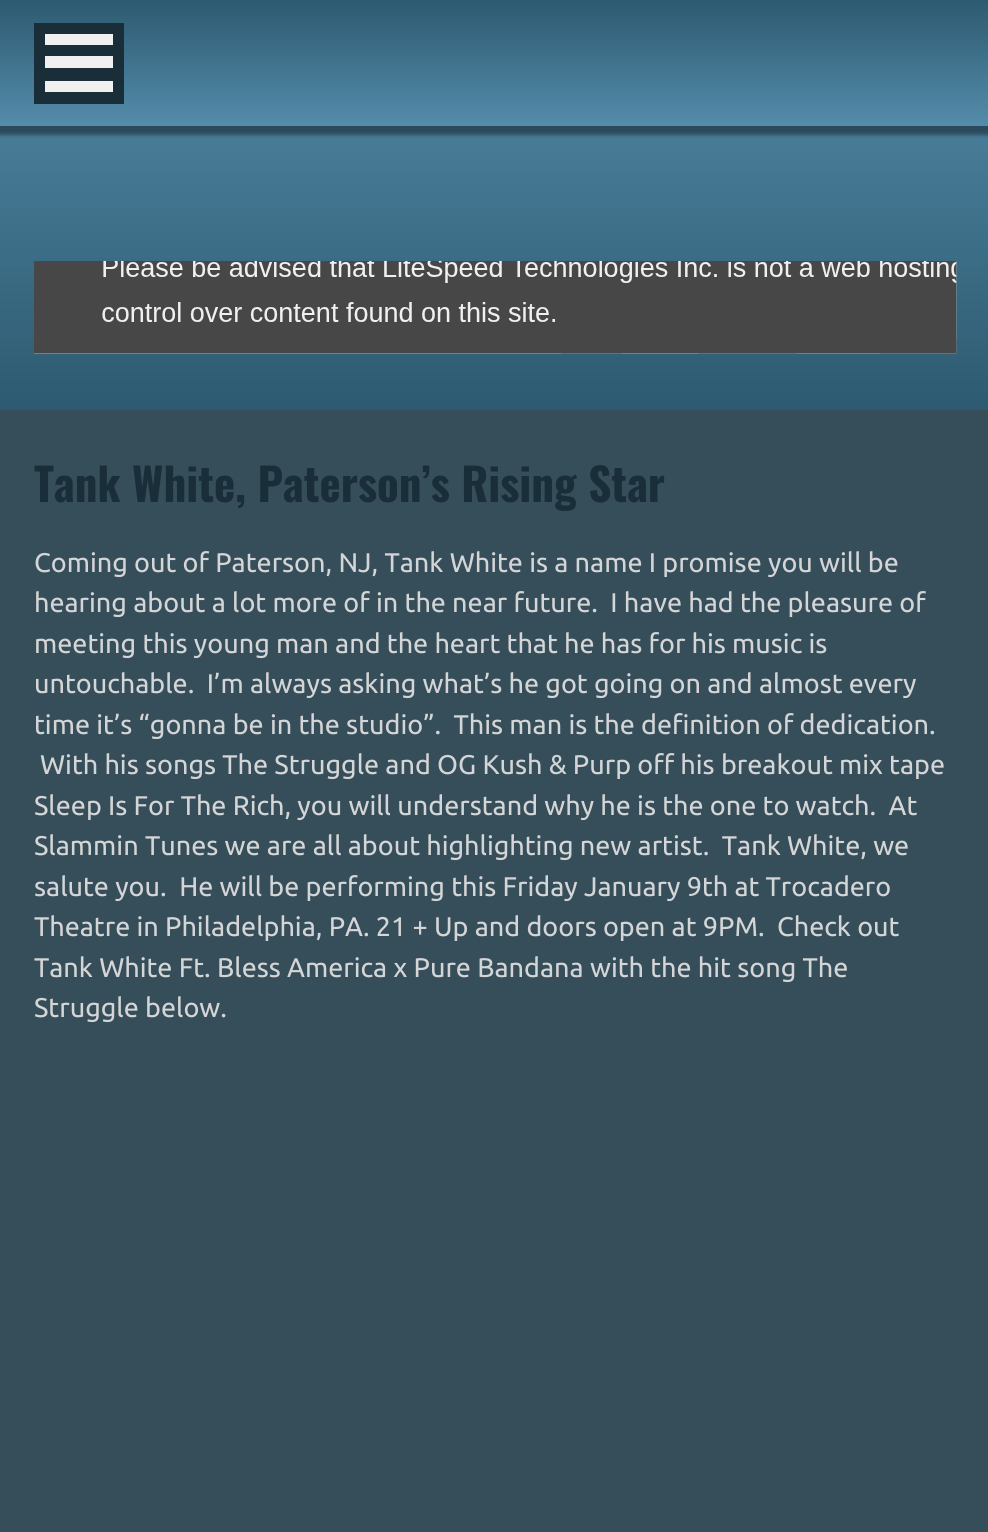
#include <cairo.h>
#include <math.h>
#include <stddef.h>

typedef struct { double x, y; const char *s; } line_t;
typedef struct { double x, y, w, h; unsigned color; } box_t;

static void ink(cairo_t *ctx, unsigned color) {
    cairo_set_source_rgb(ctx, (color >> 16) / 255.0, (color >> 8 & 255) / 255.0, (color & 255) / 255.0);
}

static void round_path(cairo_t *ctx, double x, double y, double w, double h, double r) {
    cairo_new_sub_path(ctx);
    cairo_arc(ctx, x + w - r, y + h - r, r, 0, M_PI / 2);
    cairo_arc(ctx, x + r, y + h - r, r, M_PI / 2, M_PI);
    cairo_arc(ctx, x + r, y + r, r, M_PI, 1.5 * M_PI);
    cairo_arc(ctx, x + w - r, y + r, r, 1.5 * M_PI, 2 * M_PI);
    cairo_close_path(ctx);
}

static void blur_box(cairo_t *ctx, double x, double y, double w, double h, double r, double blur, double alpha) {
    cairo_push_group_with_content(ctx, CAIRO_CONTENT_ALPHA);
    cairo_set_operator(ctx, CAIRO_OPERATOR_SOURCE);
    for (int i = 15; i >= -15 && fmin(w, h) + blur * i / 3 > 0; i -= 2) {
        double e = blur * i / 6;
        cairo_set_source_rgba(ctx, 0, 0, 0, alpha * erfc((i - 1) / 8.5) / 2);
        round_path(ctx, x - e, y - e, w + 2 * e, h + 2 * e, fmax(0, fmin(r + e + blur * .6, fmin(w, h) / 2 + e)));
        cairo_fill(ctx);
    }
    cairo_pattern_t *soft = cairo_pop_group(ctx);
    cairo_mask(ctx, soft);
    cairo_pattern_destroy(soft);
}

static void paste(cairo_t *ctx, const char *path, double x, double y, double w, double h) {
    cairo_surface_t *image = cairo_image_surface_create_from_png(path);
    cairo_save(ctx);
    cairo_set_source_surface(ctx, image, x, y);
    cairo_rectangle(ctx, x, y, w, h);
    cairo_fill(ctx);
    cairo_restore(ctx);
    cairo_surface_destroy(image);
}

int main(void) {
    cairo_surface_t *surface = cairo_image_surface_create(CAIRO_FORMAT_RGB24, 988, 1532);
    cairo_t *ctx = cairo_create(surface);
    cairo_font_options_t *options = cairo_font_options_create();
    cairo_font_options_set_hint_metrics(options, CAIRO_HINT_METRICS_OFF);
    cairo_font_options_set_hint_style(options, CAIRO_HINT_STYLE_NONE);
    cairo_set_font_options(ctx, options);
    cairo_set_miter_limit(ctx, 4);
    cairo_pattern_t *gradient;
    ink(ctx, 0x364E5A);
    cairo_paint(ctx);
    gradient = cairo_pattern_create_linear(495, 0, 495, 410);
    cairo_pattern_add_color_stop_rgba(gradient, 0, 0.329, 0.549, 0.667, 1);
    cairo_pattern_add_color_stop_rgba(gradient, 1, 0.176, 0.353, 0.439, 1);
    cairo_set_source(ctx, gradient);
    cairo_pattern_destroy(gradient);
    cairo_rectangle(ctx, 0, 126, 988, 284);
    cairo_fill(ctx);
    ink(ctx, 0x000000);
    blur_box(ctx, -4, 0, 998, 135, 0, 2, 0.4);
    gradient = cairo_pattern_create_linear(495, 126, 495, 0);
    cairo_pattern_add_color_stop_rgba(gradient, 0, 0.329, 0.549, 0.667, 1);
    cairo_pattern_add_color_stop_rgba(gradient, 1, 0.176, 0.353, 0.439, 1);
    cairo_set_source(ctx, gradient);
    cairo_pattern_destroy(gradient);
    cairo_rectangle(ctx, 0, 0, 988, 126);
    cairo_fill(ctx);
    {
        static const box_t items[] = {
            {34, 23, 90, 81, 0x192E38},
            {45, 34, 68, 11, 0xF0F0F0},
            {45, 56, 68, 12, 0xF0F0F0},
            {45, 81, 68, 11, 0xF0F0F0},
        };
        for (size_t i = 0; i < sizeof items / sizeof *items; i++) {
            ink(ctx, items[i].color);
            cairo_rectangle(ctx, items[i].x, items[i].y, items[i].w, items[i].h);
            cairo_fill(ctx);
        }
    }
    paste(ctx, "media/1.png", 34, 261, 923, 93);
    cairo_select_font_face(ctx, "Oswald", CAIRO_FONT_SLANT_NORMAL, CAIRO_FONT_WEIGHT_BOLD);
    cairo_set_font_size(ctx, 45);
    ink(ctx, 0x192E38);
    cairo_move_to(ctx, 34, 502);
    cairo_show_text(ctx, "Tank White, Paterson’s Rising Star");
    cairo_select_font_face(ctx, "Ubuntu", CAIRO_FONT_SLANT_NORMAL, CAIRO_FONT_WEIGHT_NORMAL);
    cairo_set_font_size(ctx, 27);
    ink(ctx, 0xD4D5D6);
    {
        static const line_t items[] = {
            {34, 572, "Coming out of Paterson, NJ, Tank White is a name I promise you will be"},
            {34, 612, "hearing about a lot more of in the near future.  I have had the pleasure of"},
            {34, 653, "meeting this young man and the heart that he has for his music is"},
            {34, 693, "untouchable.  I’m always asking what’s he got going on and almost every"},
            {34, 734, "time it’s “gonna be in the studio”.  This man is the definition of dedication."},
            {40, 774, "With his songs The Struggle and OG Kush & Purp off his breakout mix tape"},
            {34, 815, "Sleep Is For The Rich, you will understand why he is the one to watch.  At"},
            {34, 855, "Slammin Tunes we are all about highlighting new artist.  Tank White, we"},
            {34, 896, "salute you.  He will be performing this Friday January 9th at Trocadero"},
            {34, 936, "Theatre in Philadelphia, PA. 21 + Up and doors open at 9PM.  Check out"},
            {34, 977, "Tank White Ft. Bless America x Pure Bandana with the hit song The"},
            {34, 1017, "Struggle below."},
        };
        for (size_t i = 0; i < sizeof items / sizeof *items; i++) {
            cairo_move_to(ctx, items[i].x, items[i].y);
            cairo_show_text(ctx, items[i].s);
        }
    }
    cairo_surface_write_to_png(surface, "image.png");
    cairo_font_options_destroy(options);
    cairo_destroy(ctx);
    cairo_surface_destroy(surface);
    return 0;
}
